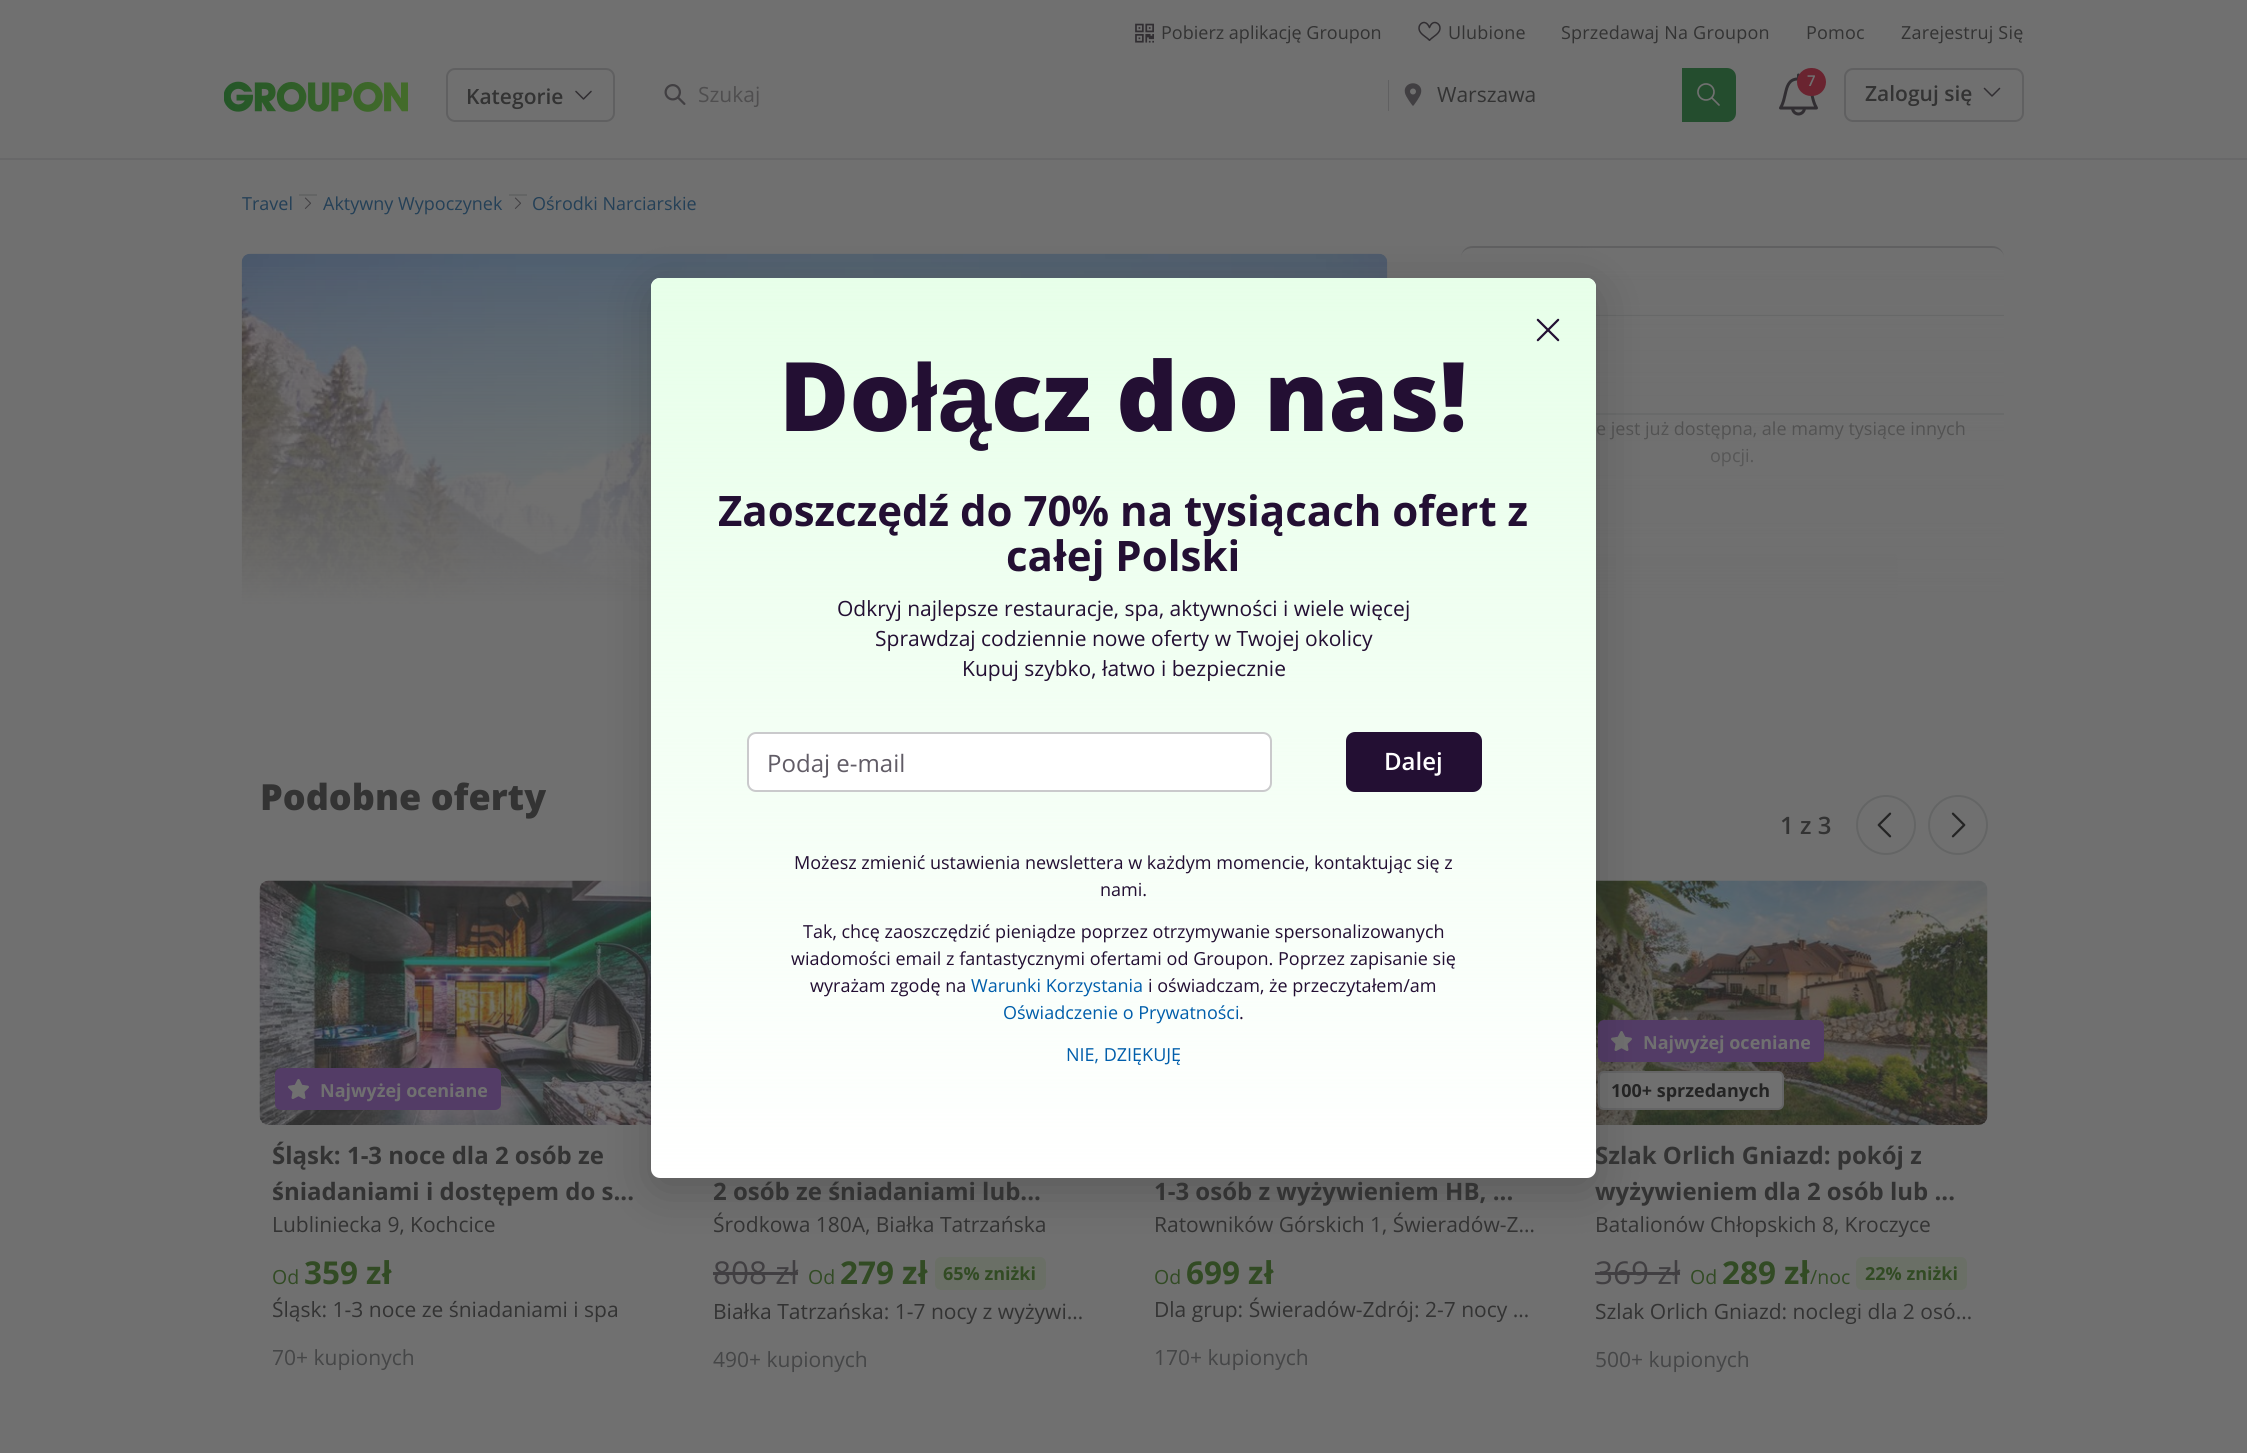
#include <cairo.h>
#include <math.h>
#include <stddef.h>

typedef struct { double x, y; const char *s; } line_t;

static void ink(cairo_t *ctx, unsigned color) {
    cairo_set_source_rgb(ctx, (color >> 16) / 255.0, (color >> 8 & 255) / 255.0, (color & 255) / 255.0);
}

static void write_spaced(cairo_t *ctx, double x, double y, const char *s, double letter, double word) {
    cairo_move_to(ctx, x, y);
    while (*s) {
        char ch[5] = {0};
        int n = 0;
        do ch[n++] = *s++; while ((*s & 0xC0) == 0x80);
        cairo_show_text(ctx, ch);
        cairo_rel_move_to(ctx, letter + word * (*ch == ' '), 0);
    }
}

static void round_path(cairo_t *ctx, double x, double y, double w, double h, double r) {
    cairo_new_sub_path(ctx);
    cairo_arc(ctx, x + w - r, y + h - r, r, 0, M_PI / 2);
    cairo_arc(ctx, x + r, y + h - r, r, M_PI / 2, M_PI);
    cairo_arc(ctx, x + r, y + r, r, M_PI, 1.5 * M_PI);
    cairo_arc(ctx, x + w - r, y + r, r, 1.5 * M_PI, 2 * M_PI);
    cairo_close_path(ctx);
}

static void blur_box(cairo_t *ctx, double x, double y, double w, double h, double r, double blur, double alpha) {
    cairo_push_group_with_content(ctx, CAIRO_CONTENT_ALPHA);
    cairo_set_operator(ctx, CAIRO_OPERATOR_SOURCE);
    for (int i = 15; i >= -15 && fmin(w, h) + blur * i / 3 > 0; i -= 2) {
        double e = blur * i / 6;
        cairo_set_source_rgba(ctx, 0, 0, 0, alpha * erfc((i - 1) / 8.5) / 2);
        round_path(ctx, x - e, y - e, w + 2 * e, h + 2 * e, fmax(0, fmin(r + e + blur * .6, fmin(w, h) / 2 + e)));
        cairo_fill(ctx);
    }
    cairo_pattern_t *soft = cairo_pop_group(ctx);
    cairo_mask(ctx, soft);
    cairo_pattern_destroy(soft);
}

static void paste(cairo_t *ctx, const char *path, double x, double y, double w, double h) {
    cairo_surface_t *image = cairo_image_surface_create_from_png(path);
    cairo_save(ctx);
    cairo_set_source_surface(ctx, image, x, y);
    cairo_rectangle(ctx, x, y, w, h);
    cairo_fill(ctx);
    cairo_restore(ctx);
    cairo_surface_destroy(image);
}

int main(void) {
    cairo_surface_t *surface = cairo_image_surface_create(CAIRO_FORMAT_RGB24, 2247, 1453);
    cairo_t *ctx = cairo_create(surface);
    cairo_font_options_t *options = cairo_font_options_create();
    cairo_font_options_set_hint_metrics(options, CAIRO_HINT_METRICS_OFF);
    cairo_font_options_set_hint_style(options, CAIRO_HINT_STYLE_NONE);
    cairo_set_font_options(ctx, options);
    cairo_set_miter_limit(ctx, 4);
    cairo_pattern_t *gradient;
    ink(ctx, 0x707070);
    cairo_paint(ctx);
    paste(ctx, "media/1.png", 1135, 23, 19, 20);
    cairo_select_font_face(ctx, "Open Sans", CAIRO_FONT_SLANT_NORMAL, CAIRO_FONT_WEIGHT_NORMAL);
    cairo_set_font_size(ctx, 18);
    ink(ctx, 0x333333);
    cairo_move_to(ctx, 1161, 39);
    cairo_show_text(ctx, "Pobierz aplikację Groupon");
    paste(ctx, "media/2.png", 1418, 21, 23, 20);
    {
        static const line_t items[] = {
            {1448, 39, "Ulubione"},
            {1561, 39, "Sprzedawaj Na Groupon"},
            {1806, 39, "Pomoc"},
            {1901, 39, "Zarejestruj Się"},
        };
        for (size_t i = 0; i < sizeof items / sizeof *items; i++) {
            write_spaced(ctx, items[i].x, items[i].y, items[i].s, 0.2, 0);
        }
    }
    paste(ctx, "media/3.png", 224, 81, 184, 31);
    round_path(ctx, 447, 69, 167, 52, 8);
    ink(ctx, 0x606061);
    cairo_stroke(ctx);
    cairo_select_font_face(ctx, "Open Sans SemiBold", CAIRO_FONT_SLANT_NORMAL, CAIRO_FONT_WEIGHT_NORMAL);
    cairo_set_font_size(ctx, 21);
    ink(ctx, 0x333333);
    cairo_move_to(ctx, 466, 104);
    cairo_show_text(ctx, "Kategorie");
    paste(ctx, "media/4.png", 575, 90, 17, 10);
    paste(ctx, "media/5.png", 664, 84, 22, 21);
    cairo_select_font_face(ctx, "Open Sans", CAIRO_FONT_SLANT_NORMAL, CAIRO_FONT_WEIGHT_NORMAL);
    ink(ctx, 0x4F4E4F);
    cairo_move_to(ctx, 698, 102);
    cairo_show_text(ctx, "Szukaj");
    ink(ctx, 0x606061);
    cairo_rectangle(ctx, 1388, 80, 1, 31);
    cairo_fill(ctx);
    paste(ctx, "media/6.png", 1404, 83, 18, 23);
    ink(ctx, 0x333333);
    cairo_move_to(ctx, 1437, 102);
    cairo_show_text(ctx, "Warszawa");
    ink(ctx, 0x244D2E);
    cairo_new_path(ctx);
    cairo_move_to(ctx, 1683, 69);
    cairo_line_to(ctx, 1727, 69);
    cairo_curve_to(ctx, 1731.5, 69, 1735, 72.5, 1735, 77);
    cairo_line_to(ctx, 1735, 113);
    cairo_curve_to(ctx, 1735, 117.5, 1731.5, 121, 1727, 121);
    cairo_line_to(ctx, 1683, 121);
    cairo_close_path(ctx);
    cairo_fill_preserve(ctx);
    cairo_stroke(ctx);
    paste(ctx, "media/7.png", 1697, 83, 23, 23);
    paste(ctx, "media/8.png", 1779, 73, 39, 43);
    ink(ctx, 0x6A2430);
    round_path(ctx, 1797, 68, 29, 28, 14);
    cairo_fill(ctx);
    cairo_select_font_face(ctx, "Open Sans SemiBold", CAIRO_FONT_SLANT_NORMAL, CAIRO_FONT_WEIGHT_NORMAL);
    cairo_set_font_size(ctx, 15);
    ink(ctx, 0x707070);
    cairo_move_to(ctx, 1807, 86);
    cairo_show_text(ctx, "7");
    round_path(ctx, 1845, 69, 178, 52, 8);
    ink(ctx, 0x606061);
    cairo_stroke(ctx);
    cairo_set_font_size(ctx, 21);
    ink(ctx, 0x333333);
    cairo_move_to(ctx, 1865, 101);
    cairo_show_text(ctx, "Zaloguj się");
    paste(ctx, "media/9.png", 1983, 87, 18, 10);
    ink(ctx, 0x686869);
    cairo_rectangle(ctx, 0, 158, 2247, 2);
    cairo_fill(ctx);
    cairo_select_font_face(ctx, "Open Sans", CAIRO_FONT_SLANT_NORMAL, CAIRO_FONT_WEIGHT_NORMAL);
    cairo_set_font_size(ctx, 18);
    ink(ctx, 0x244057);
    cairo_move_to(ctx, 242, 210);
    cairo_show_text(ctx, "Travel");
    ink(ctx, 0x646565);
    cairo_rectangle(ctx, 299, 194, 18, 2);
    cairo_fill(ctx);
    paste(ctx, "media/10.png", 304, 197, 8, 12);
    ink(ctx, 0x244057);
    cairo_move_to(ctx, 323, 210);
    cairo_show_text(ctx, "Aktywny Wypoczynek");
    ink(ctx, 0x646565);
    cairo_rectangle(ctx, 509, 194, 18, 2);
    cairo_fill(ctx);
    paste(ctx, "media/10.png", 514, 197, 8, 12);
    ink(ctx, 0x244057);
    cairo_move_to(ctx, 532, 210);
    cairo_show_text(ctx, "Ośrodki Narciarskie");
    paste(ctx, "media/11.png", 241, 253, 1147, 351);
    ink(ctx, 0x646565);
    cairo_rectangle(ctx, 1596, 315, 408, 1);
    cairo_fill(ctx);
    cairo_rectangle(ctx, 1596, 413, 408, 2);
    cairo_fill(ctx);
    ink(ctx, 0x333333);
    cairo_move_to(ctx, 1596, 435);
    cairo_show_text(ctx, "e jest już dostępna, ale mamy tysiące innych");
    cairo_move_to(ctx, 1710, 462);
    cairo_show_text(ctx, "opcji.");
    paste(ctx, "media/12.png", 1596, 554, 302, 50);
    gradient = cairo_pattern_create_linear(1124, 246, 1124, 696);
    cairo_pattern_add_color_stop_rgba(gradient, 0, 0.439, 0.439, 0.439, 0);
    cairo_pattern_add_color_stop_rgba(gradient, 0.8, 0.439, 0.439, 0.439, 1);
    cairo_set_source(ctx, gradient);
    cairo_pattern_destroy(gradient);
    cairo_rectangle(ctx, 241, 267, 1763, 337);
    cairo_fill(ctx);
    ink(ctx, 0x606061);
    cairo_new_path(ctx);
    cairo_move_to(ctx, 1473, 246);
    cairo_curve_to(ctx, 1466, 246, 1461, 251, 1461, 258);
    cairo_curve_to(ctx, 1461, 252, 1466, 248, 1473, 248);
    cairo_line_to(ctx, 1992, 248);
    cairo_curve_to(ctx, 1999, 248, 2004, 252, 2004, 258);
    cairo_curve_to(ctx, 2004, 251, 1999, 246, 1992, 246);
    cairo_close_path(ctx);
    cairo_fill(ctx);
    paste(ctx, "media/16.png", 259, 880, 392, 245);
    ink(ctx, 0x6A6F66);
    round_path(ctx, 935, 1257, 111, 33, 6);
    cairo_fill(ctx);
    paste(ctx, "media/18.png", 1596, 880, 392, 245);
    ink(ctx, 0x533C66);
    round_path(ctx, 1599, 1021, 224, 40, 5);
    cairo_fill_preserve(ctx);
    cairo_stroke(ctx);
    paste(ctx, "media/17.png", 1611, 1031, 21, 20);
    ink(ctx, 0x707070);
    round_path(ctx, 1599, 1072, 184, 37, 5);
    cairo_fill_preserve(ctx);
    ink(ctx, 0x656566);
    cairo_stroke(ctx);
    ink(ctx, 0x000000);
    blur_box(ctx, 651, 290, 945, 900, 9, 24, 0.2);
    cairo_select_font_face(ctx, "Open Sans", CAIRO_FONT_SLANT_NORMAL, CAIRO_FONT_WEIGHT_BOLD);
    cairo_set_font_size(ctx, 24);
    ink(ctx, 0x333333);
    cairo_move_to(ctx, 1595, 1164);
    cairo_show_text(ctx, "Szlak Orlich Gniazd: pokój z");
    ink(ctx, 0xFFFFFF);
    round_path(ctx, 651, 278, 945, 900, 9);
    cairo_fill(ctx);
    gradient = cairo_pattern_create_linear(1124, 277, 1124, 1178);
    cairo_pattern_add_color_stop_rgba(gradient, 0, 0.906, 1, 0.914, 1);
    cairo_pattern_add_color_stop_rgba(gradient, 1, 0.906, 1, 0.914, 0);
    cairo_pattern_add_color_stop_rgba(gradient, 1, 1, 1, 1, 0);
    cairo_pattern_add_color_stop_rgba(gradient, 1, 1, 1, 1, 1);
    cairo_set_source(ctx, gradient);
    cairo_pattern_destroy(gradient);
    round_path(ctx, 651, 278, 945, 900, 9);
    cairo_fill(ctx);
    paste(ctx, "media/13.png", 1536, 318, 24, 24);
    cairo_select_font_face(ctx, "Open Sans ExtraBold", CAIRO_FONT_SLANT_NORMAL, CAIRO_FONT_WEIGHT_NORMAL);
    cairo_set_font_size(ctx, 96);
    ink(ctx, 0x230F33);
    cairo_move_to(ctx, 779, 431);
    cairo_show_text(ctx, "Do");
    cairo_select_font_face(ctx, "Liberation Sans", CAIRO_FONT_SLANT_NORMAL, CAIRO_FONT_WEIGHT_BOLD);
    cairo_move_to(ctx, 911, 431);
    cairo_show_text(ctx, "łą");
    cairo_select_font_face(ctx, "Open Sans ExtraBold", CAIRO_FONT_SLANT_NORMAL, CAIRO_FONT_WEIGHT_NORMAL);
    cairo_move_to(ctx, 991, 431);
    cairo_show_text(ctx, "cz do nas!");
    cairo_select_font_face(ctx, "Open Sans", CAIRO_FONT_SLANT_NORMAL, CAIRO_FONT_WEIGHT_BOLD);
    cairo_set_font_size(ctx, 42);
    cairo_move_to(ctx, 718, 526);
    cairo_show_text(ctx, "Zaoszczędź do 70% na tysiącach ofert z");
    cairo_move_to(ctx, 1006, 571);
    cairo_show_text(ctx, "całej Polski");
    cairo_select_font_face(ctx, "Open Sans", CAIRO_FONT_SLANT_NORMAL, CAIRO_FONT_WEIGHT_NORMAL);
    cairo_set_font_size(ctx, 21);
    {
        static const line_t items[] = {
            {837, 616, "Odkryj najlepsze restauracje, spa, aktywności i wiele więcej"},
            {875, 646, "Sprawdzaj codziennie nowe oferty w Twojej okolicy"},
            {962, 676, "Kupuj szybko, łatwo i bezpiecznie"},
        };
        for (size_t i = 0; i < sizeof items / sizeof *items; i++) {
            cairo_move_to(ctx, items[i].x, items[i].y);
            cairo_show_text(ctx, items[i].s);
        }
    }
    ink(ctx, 0xFFFFFF);
    round_path(ctx, 748, 733, 523, 58, 8);
    cairo_fill_preserve(ctx);
    ink(ctx, 0xCACACC);
    cairo_stroke(ctx);
    cairo_set_font_size(ctx, 24);
    ink(ctx, 0x615C66);
    cairo_move_to(ctx, 767, 772);
    cairo_show_text(ctx, "Podaj e-mail");
    ink(ctx, 0x230F33);
    round_path(ctx, 1346, 732, 136, 60, 9);
    cairo_fill(ctx);
    cairo_select_font_face(ctx, "Open Sans SemiBold", CAIRO_FONT_SLANT_NORMAL, CAIRO_FONT_WEIGHT_NORMAL);
    ink(ctx, 0xFFFFFF);
    cairo_move_to(ctx, 1384, 770);
    cairo_show_text(ctx, "Dalej");
    cairo_select_font_face(ctx, "Open Sans", CAIRO_FONT_SLANT_NORMAL, CAIRO_FONT_WEIGHT_NORMAL);
    cairo_set_font_size(ctx, 18);
    ink(ctx, 0x230F33);
    {
        static const line_t items[] = {
            {794, 869, "Możesz zmienić ustawienia newslettera w każdym momencie, kontaktując się z"},
            {1100, 896, "nami."},
            {803, 938, "Tak, chcę zaoszczędzić pieniądze poprzez otrzymywanie spersonalizowanych"},
            {791, 965, "wiadomości email z fantastycznymi ofertami od Groupon. Poprzez zapisanie się"},
            {810, 992, "wyrażam zgodę na"},
        };
        for (size_t i = 0; i < sizeof items / sizeof *items; i++) {
            cairo_move_to(ctx, items[i].x, items[i].y);
            cairo_show_text(ctx, items[i].s);
        }
    }
    ink(ctx, 0x005EAB);
    cairo_move_to(ctx, 971, 992);
    cairo_show_text(ctx, "Warunki Korzystania");
    ink(ctx, 0x230F33);
    cairo_move_to(ctx, 1148, 992);
    cairo_show_text(ctx, "i oświadczam, że przeczytałem/am");
    ink(ctx, 0x005EAB);
    cairo_move_to(ctx, 1003, 1019);
    cairo_show_text(ctx, "Oświadczenie o Prywatności");
    ink(ctx, 0x230F33);
    cairo_move_to(ctx, 1239, 1019);
    cairo_show_text(ctx, ".");
    ink(ctx, 0x005EAB);
    cairo_move_to(ctx, 1066, 1061);
    cairo_show_text(ctx, "NIE, DZIĘKUJĘ");
    cairo_select_font_face(ctx, "Open Sans ExtraBold", CAIRO_FONT_SLANT_NORMAL, CAIRO_FONT_WEIGHT_NORMAL);
    cairo_set_font_size(ctx, 36);
    ink(ctx, 0x333333);
    cairo_move_to(ctx, 260, 810);
    cairo_show_text(ctx, "Podobne oferty");
    cairo_select_font_face(ctx, "Open Sans SemiBold", CAIRO_FONT_SLANT_NORMAL, CAIRO_FONT_WEIGHT_NORMAL);
    cairo_set_font_size(ctx, 24);
    cairo_move_to(ctx, 1780, 834);
    cairo_show_text(ctx, "1 z 3");
    cairo_new_path(ctx);
    cairo_arc(ctx, 1886, 825, 29, 0, 2 * M_PI);
    ink(ctx, 0x646565);
    cairo_stroke(ctx);
    paste(ctx, "media/14.png", 1877, 812, 15, 26);
    cairo_arc(ctx, 1958, 825, 29, 0, 2 * M_PI);
    cairo_stroke(ctx);
    paste(ctx, "media/15.png", 1951, 812, 15, 26);
    ink(ctx, 0x533C66);
    round_path(ctx, 276, 1069, 224, 40, 5);
    cairo_fill_preserve(ctx);
    cairo_stroke(ctx);
    paste(ctx, "media/17.png", 288, 1079, 21, 20);
    cairo_select_font_face(ctx, "Open Sans", CAIRO_FONT_SLANT_NORMAL, CAIRO_FONT_WEIGHT_BOLD);
    cairo_set_font_size(ctx, 18);
    ink(ctx, 0x707070);
    cairo_move_to(ctx, 320, 1097);
    cairo_show_text(ctx, "Najwyżej oceniane");
    cairo_set_font_size(ctx, 24);
    ink(ctx, 0x333333);
    cairo_move_to(ctx, 272, 1164);
    cairo_show_text(ctx, "Śląsk: 1-3 noce dla 2 osób ze");
    cairo_move_to(ctx, 272, 1200);
    cairo_show_text(ctx, "śniadaniami i dostępem do s...");
    cairo_select_font_face(ctx, "Open Sans", CAIRO_FONT_SLANT_NORMAL, CAIRO_FONT_WEIGHT_NORMAL);
    cairo_set_font_size(ctx, 21);
    cairo_move_to(ctx, 272, 1232);
    cairo_show_text(ctx, "Lubliniecka 9, Kochcice");
    cairo_set_font_size(ctx, 19.5);
    ink(ctx, 0x324B24);
    cairo_move_to(ctx, 272, 1284);
    cairo_show_text(ctx, "Od");
    cairo_select_font_face(ctx, "Open Sans", CAIRO_FONT_SLANT_NORMAL, CAIRO_FONT_WEIGHT_BOLD);
    cairo_set_font_size(ctx, 31.5);
    cairo_move_to(ctx, 304, 1284);
    cairo_show_text(ctx, "359 zł");
    cairo_select_font_face(ctx, "Open Sans", CAIRO_FONT_SLANT_NORMAL, CAIRO_FONT_WEIGHT_NORMAL);
    cairo_set_font_size(ctx, 21);
    ink(ctx, 0x333333);
    cairo_move_to(ctx, 272, 1317);
    cairo_show_text(ctx, "Śląsk: 1-3 noce ze śniadaniami i spa");
    ink(ctx, 0x454647);
    cairo_move_to(ctx, 272, 1365);
    cairo_show_text(ctx, "70+ kupionych");
    cairo_select_font_face(ctx, "Open Sans", CAIRO_FONT_SLANT_NORMAL, CAIRO_FONT_WEIGHT_BOLD);
    cairo_set_font_size(ctx, 24);
    ink(ctx, 0x333333);
    cairo_move_to(ctx, 713, 1200);
    cairo_show_text(ctx, "2 osób ze śniadaniami lub...");
    cairo_select_font_face(ctx, "Open Sans", CAIRO_FONT_SLANT_NORMAL, CAIRO_FONT_WEIGHT_NORMAL);
    cairo_set_font_size(ctx, 21);
    cairo_move_to(ctx, 713, 1232);
    cairo_show_text(ctx, "Środkowa 180A, Białka Tatrzańska");
    cairo_set_font_size(ctx, 31.5);
    ink(ctx, 0x413F42);
    cairo_move_to(ctx, 713, 1284);
    cairo_show_text(ctx, "808 zł");
    cairo_rectangle(ctx, 713, 1272, 85, 3);
    cairo_fill(ctx);
    cairo_set_font_size(ctx, 19.5);
    ink(ctx, 0x324B24);
    cairo_move_to(ctx, 808, 1284);
    cairo_show_text(ctx, "Od");
    cairo_select_font_face(ctx, "Open Sans", CAIRO_FONT_SLANT_NORMAL, CAIRO_FONT_WEIGHT_BOLD);
    cairo_set_font_size(ctx, 31.5);
    cairo_move_to(ctx, 840, 1284);
    cairo_show_text(ctx, "279 zł");
    cairo_set_font_size(ctx, 18);
    cairo_move_to(ctx, 943, 1280);
    cairo_show_text(ctx, "65% zniżki");
    cairo_select_font_face(ctx, "Open Sans", CAIRO_FONT_SLANT_NORMAL, CAIRO_FONT_WEIGHT_NORMAL);
    cairo_set_font_size(ctx, 21);
    ink(ctx, 0x333333);
    cairo_move_to(ctx, 713, 1319);
    cairo_show_text(ctx, "Białka Tatrzańska: 1-7 nocy z wyżywi…");
    ink(ctx, 0x454647);
    cairo_move_to(ctx, 713, 1367);
    cairo_show_text(ctx, "490+ kupionych");
    cairo_select_font_face(ctx, "Open Sans", CAIRO_FONT_SLANT_NORMAL, CAIRO_FONT_WEIGHT_BOLD);
    cairo_set_font_size(ctx, 24);
    ink(ctx, 0x333333);
    cairo_move_to(ctx, 1154, 1200);
    cairo_show_text(ctx, "1-3 osób z wyżywieniem HB, ...");
    cairo_select_font_face(ctx, "Open Sans", CAIRO_FONT_SLANT_NORMAL, CAIRO_FONT_WEIGHT_NORMAL);
    cairo_set_font_size(ctx, 21);
    cairo_move_to(ctx, 1154, 1232);
    cairo_show_text(ctx, "Ratowników Górskich 1, Świeradów-Z…");
    cairo_set_font_size(ctx, 19.5);
    ink(ctx, 0x324B24);
    cairo_move_to(ctx, 1154, 1284);
    cairo_show_text(ctx, "Od");
    cairo_select_font_face(ctx, "Open Sans", CAIRO_FONT_SLANT_NORMAL, CAIRO_FONT_WEIGHT_BOLD);
    cairo_set_font_size(ctx, 31.5);
    cairo_move_to(ctx, 1186, 1284);
    cairo_show_text(ctx, "699 zł");
    cairo_select_font_face(ctx, "Open Sans", CAIRO_FONT_SLANT_NORMAL, CAIRO_FONT_WEIGHT_NORMAL);
    cairo_set_font_size(ctx, 21);
    ink(ctx, 0x333333);
    cairo_move_to(ctx, 1154, 1317);
    cairo_show_text(ctx, "Dla grup: Świeradów-Zdrój: 2-7 nocy …");
    ink(ctx, 0x454647);
    cairo_move_to(ctx, 1154, 1365);
    cairo_show_text(ctx, "170+ kupionych");
    cairo_select_font_face(ctx, "Open Sans", CAIRO_FONT_SLANT_NORMAL, CAIRO_FONT_WEIGHT_BOLD);
    cairo_set_font_size(ctx, 18);
    ink(ctx, 0x707070);
    cairo_move_to(ctx, 1643, 1049);
    cairo_show_text(ctx, "Najwyżej oceniane");
    ink(ctx, 0x242424);
    cairo_move_to(ctx, 1611, 1097);
    cairo_show_text(ctx, "100+ sprzedanych");
    cairo_set_font_size(ctx, 24);
    ink(ctx, 0x333333);
    cairo_move_to(ctx, 1595, 1200);
    cairo_show_text(ctx, "wyżywieniem dla 2 osób lub ...");
    cairo_select_font_face(ctx, "Open Sans", CAIRO_FONT_SLANT_NORMAL, CAIRO_FONT_WEIGHT_NORMAL);
    cairo_set_font_size(ctx, 21);
    cairo_move_to(ctx, 1595, 1232);
    cairo_show_text(ctx, "Batalionów Chłopskich 8, Kroczyce");
    cairo_set_font_size(ctx, 31.5);
    ink(ctx, 0x413F42);
    cairo_move_to(ctx, 1595, 1284);
    cairo_show_text(ctx, "369 zł");
    cairo_rectangle(ctx, 1595, 1272, 85, 3);
    cairo_fill(ctx);
    cairo_set_font_size(ctx, 19.5);
    ink(ctx, 0x324B24);
    cairo_move_to(ctx, 1690, 1284);
    cairo_show_text(ctx, "Od");
    cairo_select_font_face(ctx, "Open Sans", CAIRO_FONT_SLANT_NORMAL, CAIRO_FONT_WEIGHT_BOLD);
    cairo_set_font_size(ctx, 31.5);
    cairo_move_to(ctx, 1722, 1284);
    cairo_show_text(ctx, "289 zł");
    cairo_select_font_face(ctx, "Open Sans", CAIRO_FONT_SLANT_NORMAL, CAIRO_FONT_WEIGHT_NORMAL);
    cairo_set_font_size(ctx, 19.5);
    cairo_move_to(ctx, 1810, 1284);
    cairo_show_text(ctx, "/noc");
    ink(ctx, 0x6A6F66);
    round_path(ctx, 1856, 1257, 111, 33, 6);
    cairo_fill(ctx);
    cairo_select_font_face(ctx, "Open Sans", CAIRO_FONT_SLANT_NORMAL, CAIRO_FONT_WEIGHT_BOLD);
    cairo_set_font_size(ctx, 18);
    ink(ctx, 0x324B24);
    cairo_move_to(ctx, 1865, 1280);
    cairo_show_text(ctx, "22% zniżki");
    cairo_select_font_face(ctx, "Open Sans", CAIRO_FONT_SLANT_NORMAL, CAIRO_FONT_WEIGHT_NORMAL);
    cairo_set_font_size(ctx, 21);
    ink(ctx, 0x333333);
    cairo_move_to(ctx, 1595, 1319);
    cairo_show_text(ctx, "Szlak Orlich Gniazd: noclegi dla 2 osó…");
    ink(ctx, 0x454647);
    cairo_move_to(ctx, 1595, 1367);
    cairo_show_text(ctx, "500+ kupionych");
    cairo_surface_write_to_png(surface, "image.png");
    cairo_font_options_destroy(options);
    cairo_destroy(ctx);
    cairo_surface_destroy(surface);
    return 0;
}
